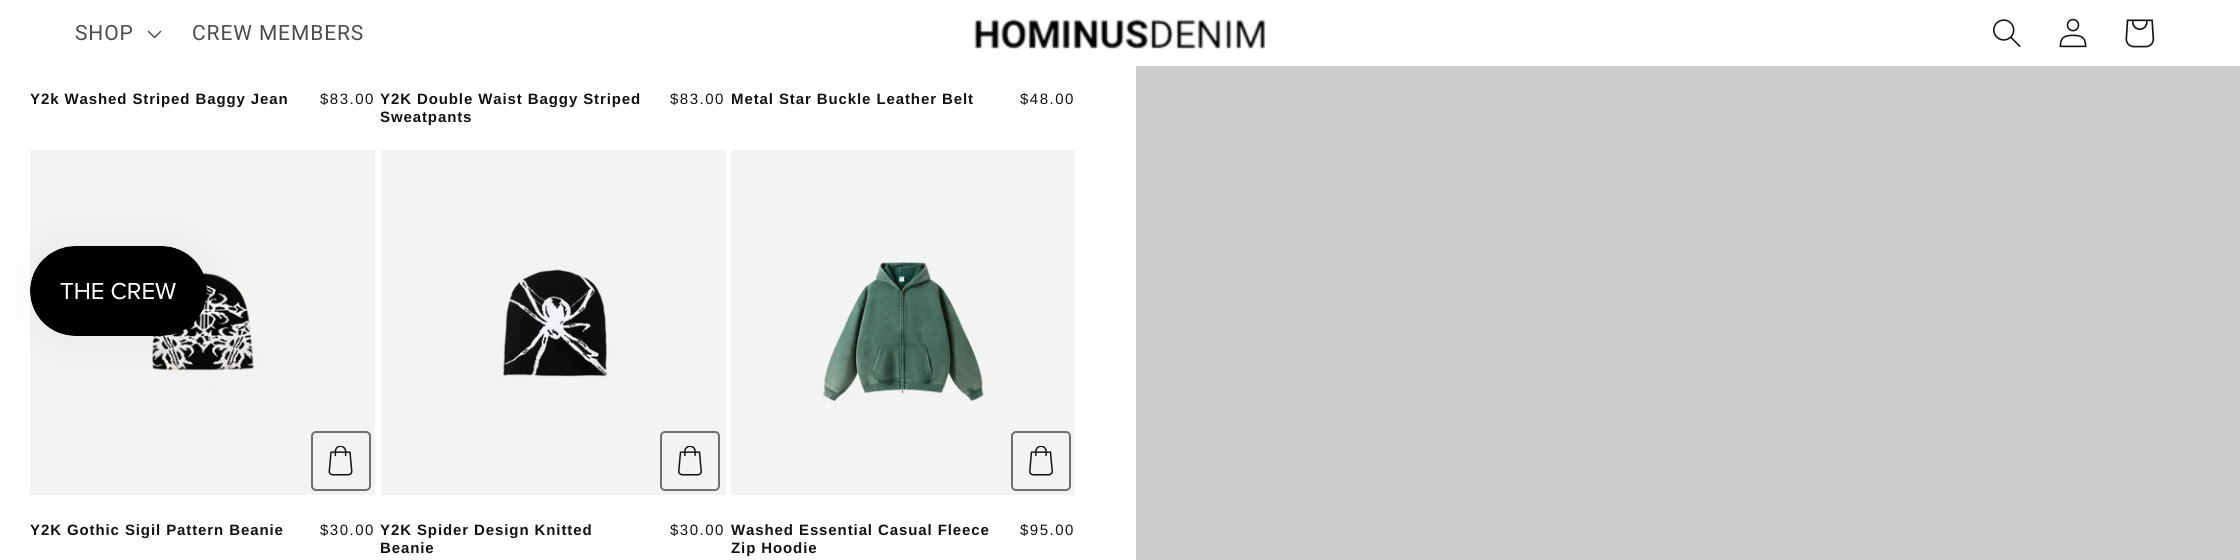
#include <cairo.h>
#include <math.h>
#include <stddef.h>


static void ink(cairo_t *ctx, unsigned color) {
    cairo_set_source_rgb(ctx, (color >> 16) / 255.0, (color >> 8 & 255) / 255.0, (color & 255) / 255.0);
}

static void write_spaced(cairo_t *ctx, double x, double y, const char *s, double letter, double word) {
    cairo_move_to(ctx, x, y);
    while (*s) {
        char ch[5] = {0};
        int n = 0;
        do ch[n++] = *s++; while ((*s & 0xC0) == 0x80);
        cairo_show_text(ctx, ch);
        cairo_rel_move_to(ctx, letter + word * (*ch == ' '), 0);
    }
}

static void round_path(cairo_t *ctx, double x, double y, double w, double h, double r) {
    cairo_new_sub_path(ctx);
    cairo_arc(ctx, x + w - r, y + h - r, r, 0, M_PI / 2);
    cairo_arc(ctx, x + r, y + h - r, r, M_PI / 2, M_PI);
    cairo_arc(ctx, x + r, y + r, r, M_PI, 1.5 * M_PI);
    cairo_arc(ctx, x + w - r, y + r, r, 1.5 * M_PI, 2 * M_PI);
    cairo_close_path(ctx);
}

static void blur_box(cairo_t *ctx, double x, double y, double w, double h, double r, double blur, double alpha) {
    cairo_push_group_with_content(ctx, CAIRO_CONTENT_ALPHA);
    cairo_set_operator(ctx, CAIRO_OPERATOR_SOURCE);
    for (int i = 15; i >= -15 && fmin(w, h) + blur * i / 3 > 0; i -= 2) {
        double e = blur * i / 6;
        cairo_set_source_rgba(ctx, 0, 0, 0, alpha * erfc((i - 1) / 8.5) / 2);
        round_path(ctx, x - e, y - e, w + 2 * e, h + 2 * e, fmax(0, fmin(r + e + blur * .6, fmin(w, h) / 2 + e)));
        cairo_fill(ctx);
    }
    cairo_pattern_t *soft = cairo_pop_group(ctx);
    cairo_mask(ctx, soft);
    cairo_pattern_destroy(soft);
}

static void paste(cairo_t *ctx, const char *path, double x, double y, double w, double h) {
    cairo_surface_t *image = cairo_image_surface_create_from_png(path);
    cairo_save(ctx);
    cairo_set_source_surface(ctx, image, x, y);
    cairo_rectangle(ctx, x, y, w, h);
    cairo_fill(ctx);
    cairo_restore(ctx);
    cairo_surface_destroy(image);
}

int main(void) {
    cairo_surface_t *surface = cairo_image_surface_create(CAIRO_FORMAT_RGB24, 2240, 560);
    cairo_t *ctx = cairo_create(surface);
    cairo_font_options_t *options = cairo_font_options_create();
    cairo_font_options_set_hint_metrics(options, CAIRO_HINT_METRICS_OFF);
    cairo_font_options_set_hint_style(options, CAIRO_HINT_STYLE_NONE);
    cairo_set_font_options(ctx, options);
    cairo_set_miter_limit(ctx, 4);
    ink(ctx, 0xFFFFFF);
    cairo_paint(ctx);
    cairo_select_font_face(ctx, "Roboto", CAIRO_FONT_SLANT_NORMAL, CAIRO_FONT_WEIGHT_NORMAL);
    cairo_set_font_size(ctx, 21);
    ink(ctx, 0x4D4D4D);
    write_spaced(ctx, 75, 40, "SHOP", 0.9, 0);
    paste(ctx, "media/1.png", 147, 30, 15, 9);
    write_spaced(ctx, 192, 40, "CREW MEMBERS", 0.9, 0);
    paste(ctx, "media/2.png", 974, 19, 292, 30);
    paste(ctx, "media/3.png", 1993, 19, 28, 28);
    paste(ctx, "media/4.png", 2059, 18, 28, 30);
    paste(ctx, "media/5.png", 2125, 19, 30, 29);
    cairo_select_font_face(ctx, "Liberation Sans", CAIRO_FONT_SLANT_NORMAL, CAIRO_FONT_WEIGHT_BOLD);
    cairo_set_font_size(ctx, 15);
    ink(ctx, 0x121212);
    write_spaced(ctx, 30, 104, "Y2k Washed Striped Baggy Jean", 0.9, 0);
    cairo_select_font_face(ctx, "Liberation Sans", CAIRO_FONT_SLANT_NORMAL, CAIRO_FONT_WEIGHT_NORMAL);
    write_spaced(ctx, 320, 104, "$83.00", 1.5, 0);
    cairo_select_font_face(ctx, "Liberation Sans", CAIRO_FONT_SLANT_NORMAL, CAIRO_FONT_WEIGHT_BOLD);
    write_spaced(ctx, 380, 104, "Y2K Double Waist Baggy Striped", 0.9, 0);
    write_spaced(ctx, 380, 122, "Sweatpants", 0.9, 0);
    cairo_select_font_face(ctx, "Liberation Sans", CAIRO_FONT_SLANT_NORMAL, CAIRO_FONT_WEIGHT_NORMAL);
    write_spaced(ctx, 670, 104, "$83.00", 1.5, 0);
    cairo_select_font_face(ctx, "Liberation Sans", CAIRO_FONT_SLANT_NORMAL, CAIRO_FONT_WEIGHT_BOLD);
    write_spaced(ctx, 731, 104, "Metal Star Buckle Leather Belt", 0.9, 0);
    cairo_select_font_face(ctx, "Liberation Sans", CAIRO_FONT_SLANT_NORMAL, CAIRO_FONT_WEIGHT_NORMAL);
    write_spaced(ctx, 1020, 104, "$48.00", 1.5, 0);
    paste(ctx, "media/6.png", 30, 150, 345, 345);
    paste(ctx, "media/7.png", 328, 446, 25, 30);
    round_path(ctx, 312, 432, 58, 58, 4);
    ink(ctx, 0xFFFFFF);
    cairo_stroke(ctx);
    round_path(ctx, 312, 432, 58, 58, 4);
    cairo_set_source_rgba(ctx, 0.071, 0.071, 0.071, 0.6);
    cairo_stroke(ctx);
    cairo_select_font_face(ctx, "Liberation Sans", CAIRO_FONT_SLANT_NORMAL, CAIRO_FONT_WEIGHT_BOLD);
    ink(ctx, 0x121212);
    write_spaced(ctx, 30, 535, "Y2K Gothic Sigil Pattern Beanie", 0.9, 0);
    cairo_select_font_face(ctx, "Liberation Sans", CAIRO_FONT_SLANT_NORMAL, CAIRO_FONT_WEIGHT_NORMAL);
    write_spaced(ctx, 320, 535, "$30.00", 1.5, 0);
    paste(ctx, "media/8.png", 381, 150, 345, 345);
    paste(ctx, "media/9.png", 678, 446, 24, 30);
    round_path(ctx, 661, 432, 58, 58, 4);
    ink(ctx, 0xFFFFFF);
    cairo_stroke(ctx);
    round_path(ctx, 661, 432, 58, 58, 4);
    cairo_set_source_rgba(ctx, 0.071, 0.071, 0.071, 0.6);
    cairo_stroke(ctx);
    cairo_select_font_face(ctx, "Liberation Sans", CAIRO_FONT_SLANT_NORMAL, CAIRO_FONT_WEIGHT_BOLD);
    ink(ctx, 0x121212);
    write_spaced(ctx, 380, 535, "Y2K Spider Design Knitted", 0.9, 0);
    write_spaced(ctx, 380, 553, "Beanie", 0.9, 0);
    cairo_select_font_face(ctx, "Liberation Sans", CAIRO_FONT_SLANT_NORMAL, CAIRO_FONT_WEIGHT_NORMAL);
    write_spaced(ctx, 670, 535, "$30.00", 1.5, 0);
    paste(ctx, "media/10.png", 731, 150, 344, 345);
    paste(ctx, "media/9.png", 1029, 446, 24, 30);
    round_path(ctx, 1012, 432, 58, 58, 4);
    ink(ctx, 0xFFFFFF);
    cairo_stroke(ctx);
    round_path(ctx, 1012, 432, 58, 58, 4);
    cairo_set_source_rgba(ctx, 0.071, 0.071, 0.071, 0.6);
    cairo_stroke(ctx);
    cairo_select_font_face(ctx, "Liberation Sans", CAIRO_FONT_SLANT_NORMAL, CAIRO_FONT_WEIGHT_BOLD);
    ink(ctx, 0x121212);
    write_spaced(ctx, 731, 535, "Washed Essential Casual Fleece", 0.9, 0);
    write_spaced(ctx, 731, 553, "Zip Hoodie", 0.9, 0);
    cairo_select_font_face(ctx, "Liberation Sans", CAIRO_FONT_SLANT_NORMAL, CAIRO_FONT_WEIGHT_NORMAL);
    write_spaced(ctx, 1020, 535, "$95.00", 1.5, 0);
    ink(ctx, 0xCDCDCD);
    cairo_rectangle(ctx, 1136, 66, 1104, 494);
    cairo_fill(ctx);
    ink(ctx, 0x000000);
    blur_box(ctx, 30, 246, 177, 90, 45, 19, 0.05);
    paste(ctx, "media/11.png", 30, 246, 177, 90);
    cairo_surface_write_to_png(surface, "image.png");
    cairo_font_options_destroy(options);
    cairo_destroy(ctx);
    cairo_surface_destroy(surface);
    return 0;
}
